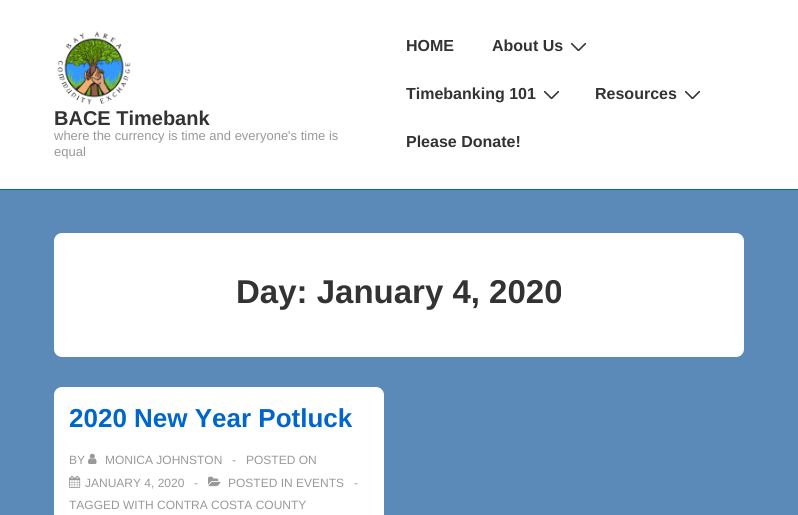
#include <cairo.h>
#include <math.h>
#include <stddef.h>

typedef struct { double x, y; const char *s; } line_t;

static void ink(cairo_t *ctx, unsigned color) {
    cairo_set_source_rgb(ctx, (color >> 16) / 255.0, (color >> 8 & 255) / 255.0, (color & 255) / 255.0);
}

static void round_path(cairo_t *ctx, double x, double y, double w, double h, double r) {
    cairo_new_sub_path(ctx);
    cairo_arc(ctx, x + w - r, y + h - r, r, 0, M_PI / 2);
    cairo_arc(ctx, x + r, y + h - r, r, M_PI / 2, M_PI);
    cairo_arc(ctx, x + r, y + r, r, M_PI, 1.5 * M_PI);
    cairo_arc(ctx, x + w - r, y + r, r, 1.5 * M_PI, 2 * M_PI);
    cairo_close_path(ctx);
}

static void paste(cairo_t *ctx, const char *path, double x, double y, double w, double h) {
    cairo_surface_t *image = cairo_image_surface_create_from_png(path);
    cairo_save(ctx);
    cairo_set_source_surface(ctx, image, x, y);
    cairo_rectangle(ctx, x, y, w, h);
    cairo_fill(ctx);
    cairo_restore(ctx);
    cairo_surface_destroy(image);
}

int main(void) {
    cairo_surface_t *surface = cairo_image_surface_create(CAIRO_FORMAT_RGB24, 798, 515);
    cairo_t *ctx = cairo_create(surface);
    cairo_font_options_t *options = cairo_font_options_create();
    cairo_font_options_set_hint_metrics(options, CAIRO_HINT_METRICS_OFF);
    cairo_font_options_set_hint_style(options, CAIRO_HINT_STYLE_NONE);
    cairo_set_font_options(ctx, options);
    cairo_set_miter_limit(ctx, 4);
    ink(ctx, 0x5C8AB8);
    cairo_paint(ctx);
    ink(ctx, 0xFFFFFF);
    cairo_rectangle(ctx, 0, 0, 798, 189);
    cairo_fill(ctx);
    ink(ctx, 0x0066CC);
    cairo_rectangle(ctx, 0, 189, 798, 1);
    cairo_fill(ctx);
    paste(ctx, "media/1.png", 57, 31, 74, 74);
    cairo_select_font_face(ctx, "Liberation Sans", CAIRO_FONT_SLANT_NORMAL, CAIRO_FONT_WEIGHT_BOLD);
    cairo_set_font_size(ctx, 20);
    ink(ctx, 0x333333);
    cairo_move_to(ctx, 54, 125);
    cairo_show_text(ctx, "BACE Timebank");
    cairo_select_font_face(ctx, "Liberation Sans", CAIRO_FONT_SLANT_NORMAL, CAIRO_FONT_WEIGHT_NORMAL);
    cairo_set_font_size(ctx, 13);
    ink(ctx, 0x999999);
    cairo_move_to(ctx, 54, 140);
    cairo_show_text(ctx, "where the currency is time and everyone's time is");
    cairo_move_to(ctx, 54, 156);
    cairo_show_text(ctx, "equal");
    cairo_select_font_face(ctx, "Liberation Sans", CAIRO_FONT_SLANT_NORMAL, CAIRO_FONT_WEIGHT_BOLD);
    cairo_set_font_size(ctx, 16);
    ink(ctx, 0x333333);
    cairo_move_to(ctx, 406, 51);
    cairo_show_text(ctx, "HOME");
    cairo_move_to(ctx, 492, 51);
    cairo_show_text(ctx, "About Us");
    cairo_save(ctx);
    cairo_rectangle(ctx, 571, 43, 15, 8);
    cairo_clip(ctx);
    cairo_new_path(ctx);
    cairo_move_to(ctx, 571.5, 43.5);
    cairo_line_to(ctx, 578.5, 50.5);
    cairo_line_to(ctx, 585.5, 43.5);
    cairo_set_line_width(ctx, 1.6);
    cairo_set_line_cap(ctx, CAIRO_LINE_CAP_ROUND);
    cairo_stroke(ctx);
    cairo_restore(ctx);
    cairo_move_to(ctx, 406, 99);
    cairo_show_text(ctx, "Timebanking 101");
    cairo_save(ctx);
    cairo_rectangle(ctx, 544, 91, 15, 8);
    cairo_clip(ctx);
    cairo_new_path(ctx);
    cairo_move_to(ctx, 544.5, 91.5);
    cairo_line_to(ctx, 551.5, 98.5);
    cairo_line_to(ctx, 558.5, 91.5);
    cairo_set_line_width(ctx, 1.6);
    cairo_set_line_cap(ctx, CAIRO_LINE_CAP_ROUND);
    cairo_stroke(ctx);
    cairo_restore(ctx);
    cairo_move_to(ctx, 595, 99);
    cairo_show_text(ctx, "Resources");
    cairo_save(ctx);
    cairo_rectangle(ctx, 685, 91, 15, 8);
    cairo_clip(ctx);
    cairo_new_path(ctx);
    cairo_move_to(ctx, 685.5, 91.5);
    cairo_line_to(ctx, 692.5, 98.5);
    cairo_line_to(ctx, 699.5, 91.5);
    cairo_set_line_width(ctx, 1.6);
    cairo_set_line_cap(ctx, CAIRO_LINE_CAP_ROUND);
    cairo_stroke(ctx);
    cairo_restore(ctx);
    cairo_move_to(ctx, 406, 147);
    cairo_show_text(ctx, "Please Donate!");
    ink(ctx, 0xFFFFFF);
    round_path(ctx, 54, 233, 690, 124, 8);
    cairo_fill(ctx);
    cairo_set_font_size(ctx, 33);
    ink(ctx, 0x333333);
    cairo_move_to(ctx, 236, 303);
    cairo_show_text(ctx, "Day: January 4, 2020");
    ink(ctx, 0xFFFFFF);
    round_path(ctx, 54, 387, 330, 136, 8);
    cairo_fill(ctx);
    cairo_set_font_size(ctx, 26);
    ink(ctx, 0x0066CC);
    cairo_move_to(ctx, 69, 427);
    cairo_show_text(ctx, "2020 New Year Potluck");
    cairo_select_font_face(ctx, "Liberation Sans", CAIRO_FONT_SLANT_NORMAL, CAIRO_FONT_WEIGHT_NORMAL);
    cairo_set_font_size(ctx, 12);
    ink(ctx, 0x999999);
    cairo_move_to(ctx, 69, 464);
    cairo_show_text(ctx, "BY");
    paste(ctx, "media/2.png", 88, 453, 9, 11);
    {
        static const line_t items[] = {
            {105, 464, "MONICA JOHNSTON"},
            {232, 464, "-"},
            {246, 464, "POSTED ON"},
        };
        for (size_t i = 0; i < sizeof items / sizeof *items; i++) {
            cairo_move_to(ctx, items[i].x, items[i].y);
            cairo_show_text(ctx, items[i].s);
        }
    }
    paste(ctx, "media/3.png", 69, 475, 12, 13);
    cairo_move_to(ctx, 85, 487);
    cairo_show_text(ctx, "JANUARY 4, 2020");
    cairo_move_to(ctx, 194, 487);
    cairo_show_text(ctx, "-");
    paste(ctx, "media/4.png", 208, 476, 13, 11);
    {
        static const line_t items[] = {
            {228, 487, "POSTED IN EVENTS"},
            {354, 487, "-"},
            {69, 509, "TAGGED WITH CONTRA COSTA COUNTY"},
        };
        for (size_t i = 0; i < sizeof items / sizeof *items; i++) {
            cairo_move_to(ctx, items[i].x, items[i].y);
            cairo_show_text(ctx, items[i].s);
        }
    }
    cairo_surface_write_to_png(surface, "image.png");
    cairo_font_options_destroy(options);
    cairo_destroy(ctx);
    cairo_surface_destroy(surface);
    return 0;
}
